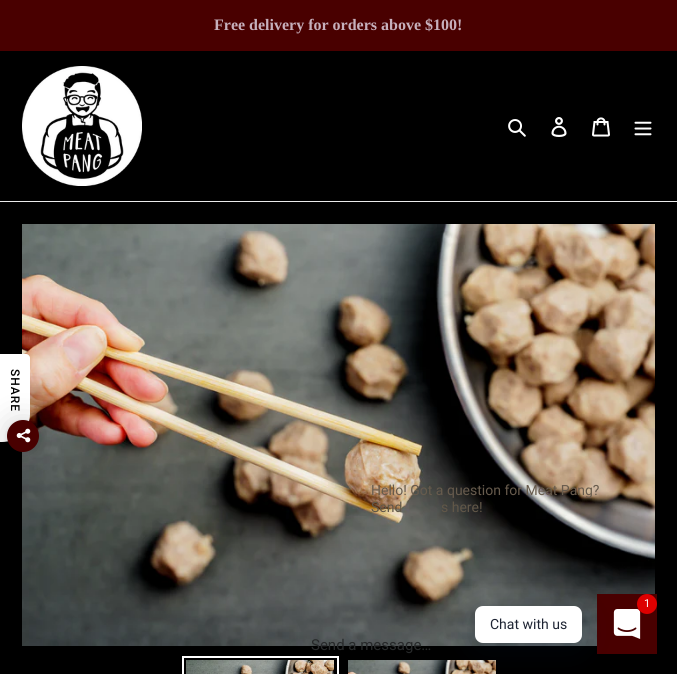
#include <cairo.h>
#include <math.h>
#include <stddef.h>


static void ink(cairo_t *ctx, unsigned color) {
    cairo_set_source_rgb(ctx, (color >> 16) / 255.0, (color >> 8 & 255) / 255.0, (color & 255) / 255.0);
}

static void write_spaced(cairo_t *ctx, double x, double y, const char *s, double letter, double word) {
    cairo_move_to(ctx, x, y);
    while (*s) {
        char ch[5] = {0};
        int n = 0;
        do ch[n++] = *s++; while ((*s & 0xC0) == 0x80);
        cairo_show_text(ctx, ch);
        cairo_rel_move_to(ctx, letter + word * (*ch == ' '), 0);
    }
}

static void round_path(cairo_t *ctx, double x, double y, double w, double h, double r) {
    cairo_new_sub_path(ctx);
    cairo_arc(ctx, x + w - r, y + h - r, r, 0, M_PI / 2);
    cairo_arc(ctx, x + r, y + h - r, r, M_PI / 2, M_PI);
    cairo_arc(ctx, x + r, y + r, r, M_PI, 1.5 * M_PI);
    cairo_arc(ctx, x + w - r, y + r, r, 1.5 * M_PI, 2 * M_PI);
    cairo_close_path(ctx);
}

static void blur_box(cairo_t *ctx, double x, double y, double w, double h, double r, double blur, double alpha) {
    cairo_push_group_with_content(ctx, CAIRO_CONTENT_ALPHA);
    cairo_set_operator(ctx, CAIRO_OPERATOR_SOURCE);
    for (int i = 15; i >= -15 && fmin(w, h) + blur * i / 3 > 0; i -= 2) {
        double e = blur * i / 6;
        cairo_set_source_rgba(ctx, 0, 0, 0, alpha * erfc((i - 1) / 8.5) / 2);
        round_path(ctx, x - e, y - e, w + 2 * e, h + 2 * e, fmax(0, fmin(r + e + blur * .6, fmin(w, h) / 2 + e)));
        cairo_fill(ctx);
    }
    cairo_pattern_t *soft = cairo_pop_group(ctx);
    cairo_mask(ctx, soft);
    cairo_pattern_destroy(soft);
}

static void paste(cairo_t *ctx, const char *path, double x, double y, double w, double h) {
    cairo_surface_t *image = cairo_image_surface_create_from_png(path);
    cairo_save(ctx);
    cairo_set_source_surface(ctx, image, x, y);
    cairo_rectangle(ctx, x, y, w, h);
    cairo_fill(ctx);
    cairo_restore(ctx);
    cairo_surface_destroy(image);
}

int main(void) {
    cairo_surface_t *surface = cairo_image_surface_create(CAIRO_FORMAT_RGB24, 677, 674);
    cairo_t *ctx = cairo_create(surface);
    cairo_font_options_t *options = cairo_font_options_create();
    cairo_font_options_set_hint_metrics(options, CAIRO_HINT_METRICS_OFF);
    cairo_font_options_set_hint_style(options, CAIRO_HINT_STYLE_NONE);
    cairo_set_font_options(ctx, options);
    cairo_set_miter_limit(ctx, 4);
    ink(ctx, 0x000000);
    cairo_paint(ctx);
    ink(ctx, 0x490000);
    cairo_rectangle(ctx, 0, 0, 677, 51);
    cairo_fill(ctx);
    cairo_select_font_face(ctx, "Liberation Serif", CAIRO_FONT_SLANT_NORMAL, CAIRO_FONT_WEIGHT_BOLD);
    cairo_set_font_size(ctx, 16);
    ink(ctx, 0xC6B0BC);
    cairo_move_to(ctx, 214, 30);
    cairo_show_text(ctx, "Free delivery for orders above $100!");
    ink(ctx, 0xEBEBEB);
    cairo_rectangle(ctx, 0, 201, 677, 1);
    cairo_fill(ctx);
    paste(ctx, "media/1.png", 22, 66, 120, 120);
    paste(ctx, "media/2.png", 508, 119, 18, 18);
    paste(ctx, "media/3.png", 551, 117, 16, 20);
    paste(ctx, "media/4.png", 592, 117, 18, 20);
    paste(ctx, "media/5.png", 634, 121, 18, 15);
    paste(ctx, "media/6.png", 22, 224, 633, 422);
    cairo_rectangle(ctx, 183, 657, 155, 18);
    ink(ctx, 0xFFFFFF);
    cairo_stroke(ctx);
    paste(ctx, "media/7.png", 186, 660, 148, 14);
    paste(ctx, "media/8.png", 348, 660, 148, 14);
    ink(ctx, 0x000000);
    blur_box(ctx, -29, 386, 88, 30, 28, 7, 0.15);
    ink(ctx, 0xFFFFFF);
    cairo_new_path(ctx);
    cairo_move_to(ctx, 0, 442);
    cairo_line_to(ctx, 0, 354);
    cairo_line_to(ctx, 26, 354);
    cairo_curve_to(ctx, 28, 354, 30, 356, 30, 358);
    cairo_line_to(ctx, 30, 414);
    cairo_curve_to(ctx, 30, 429, 17, 442, 2, 442);
    cairo_close_path(ctx);
    cairo_fill(ctx);
    cairo_select_font_face(ctx, "Roboto Medium", CAIRO_FONT_SLANT_NORMAL, CAIRO_FONT_WEIGHT_NORMAL);
    cairo_set_font_size(ctx, 12);
    ink(ctx, 0x000000);
    cairo_save(ctx);
    cairo_translate(ctx, 11, 369);
    cairo_rotate(ctx, 90 * M_PI / 180);
    write_spaced(ctx, 0, 0, "SHARE", 1, 0);
    cairo_restore(ctx);
    ink(ctx, 0x000000);
    blur_box(ctx, 7, 422, 32, 32, 16, 16, 0.16);
    blur_box(ctx, 7, 421, 32, 32, 16, 3, 0.06);
    ink(ctx, 0x490000);
    cairo_arc(ctx, 23, 436, 16, 0, 2 * M_PI);
    cairo_fill(ctx);
    paste(ctx, "media/9.png", 16, 428, 15, 15);
    cairo_select_font_face(ctx, "Roboto", CAIRO_FONT_SLANT_NORMAL, CAIRO_FONT_WEIGHT_NORMAL);
    cairo_set_font_size(ctx, 14);
    ink(ctx, 0x675B4D);
    cairo_move_to(ctx, 371, 495);
    cairo_show_text(ctx, "Hello! Got a question for Meat Pang?");
    ink(ctx, 0x615748);
    cairo_move_to(ctx, 371, 512);
    cairo_show_text(ctx, "Send");
    cairo_move_to(ctx, 441, 512);
    cairo_show_text(ctx, "s here!");
    cairo_set_font_size(ctx, 15);
    ink(ctx, 0x27292A);
    cairo_move_to(ctx, 311, 650);
    cairo_show_text(ctx, "Send a message…");
    ink(ctx, 0x000000);
    blur_box(ctx, 597, 596, 60, 60, 30, 16, 0.16);
    ink(ctx, 0x490000);
    cairo_rectangle(ctx, 597, 594, 60, 60);
    cairo_fill(ctx);
    ink(ctx, 0x00122E);
    blur_box(ctx, 475, 612, 107, 37, 8, 16, 0.24);
    paste(ctx, "media/10.png", 613, 609, 28, 30);
    ink(ctx, 0xDD0000);
    cairo_arc(ctx, 647, 604, 10, 0, 2 * M_PI);
    cairo_fill(ctx);
    cairo_set_font_size(ctx, 11);
    ink(ctx, 0xFFFFFF);
    cairo_move_to(ctx, 644, 607);
    cairo_show_text(ctx, "1");
    round_path(ctx, 475, 606, 107, 37, 8);
    cairo_fill(ctx);
    cairo_set_font_size(ctx, 14);
    ink(ctx, 0x1E2433);
    cairo_move_to(ctx, 490, 629);
    cairo_show_text(ctx, "Chat with us");
    cairo_surface_write_to_png(surface, "image.png");
    cairo_font_options_destroy(options);
    cairo_destroy(ctx);
    cairo_surface_destroy(surface);
    return 0;
}
